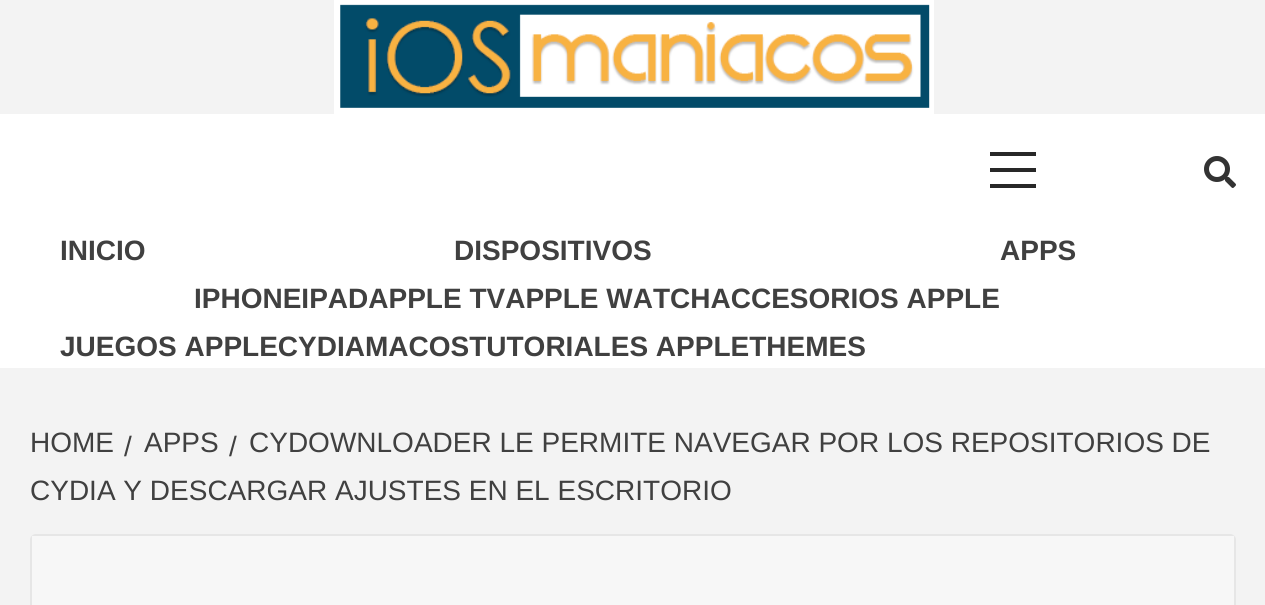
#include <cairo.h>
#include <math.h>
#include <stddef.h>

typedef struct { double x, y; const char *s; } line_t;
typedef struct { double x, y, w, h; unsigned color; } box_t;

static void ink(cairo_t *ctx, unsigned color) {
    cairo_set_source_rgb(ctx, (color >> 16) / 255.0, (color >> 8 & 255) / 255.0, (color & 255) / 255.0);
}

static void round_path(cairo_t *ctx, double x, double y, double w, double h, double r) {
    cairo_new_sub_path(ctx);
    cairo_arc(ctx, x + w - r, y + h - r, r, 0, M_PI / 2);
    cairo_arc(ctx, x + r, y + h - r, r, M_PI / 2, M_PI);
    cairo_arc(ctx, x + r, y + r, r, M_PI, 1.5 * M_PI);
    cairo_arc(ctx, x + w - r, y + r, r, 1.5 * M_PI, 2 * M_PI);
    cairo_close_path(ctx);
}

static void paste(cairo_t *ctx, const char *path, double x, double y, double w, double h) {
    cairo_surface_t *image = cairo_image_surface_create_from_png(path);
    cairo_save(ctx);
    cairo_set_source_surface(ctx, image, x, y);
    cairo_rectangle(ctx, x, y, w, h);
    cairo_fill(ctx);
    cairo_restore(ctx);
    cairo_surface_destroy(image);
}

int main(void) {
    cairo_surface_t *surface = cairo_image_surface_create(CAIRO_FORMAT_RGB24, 1265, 605);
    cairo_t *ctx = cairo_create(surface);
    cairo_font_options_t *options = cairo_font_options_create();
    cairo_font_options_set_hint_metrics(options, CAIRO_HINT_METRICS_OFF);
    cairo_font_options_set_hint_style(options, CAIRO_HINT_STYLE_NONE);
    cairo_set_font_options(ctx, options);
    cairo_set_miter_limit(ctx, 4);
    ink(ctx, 0xF3F3F3);
    cairo_paint(ctx);
    paste(ctx, "media/1.png", 334, 0, 600, 114);
    {
        static const box_t items[] = {
            {0, 114, 1265, 254, 0xFFFFFF},
            {990, 168, 46, 4, 0x282828},
            {990, 152, 46, 4, 0x282828},
            {990, 184, 46, 4, 0x282828},
        };
        for (size_t i = 0; i < sizeof items / sizeof *items; i++) {
            ink(ctx, items[i].color);
            cairo_rectangle(ctx, items[i].x, items[i].y, items[i].w, items[i].h);
            cairo_fill(ctx);
        }
    }
    paste(ctx, "media/2.png", 1204, 156, 32, 32);
    cairo_select_font_face(ctx, "Liberation Sans", CAIRO_FONT_SLANT_NORMAL, CAIRO_FONT_WEIGHT_BOLD);
    cairo_set_font_size(ctx, 28);
    ink(ctx, 0x404040);
    {
        static const line_t items[] = {
            {60, 260, "INICIO"},
            {454, 260, "DISPOSITIVOS"},
            {194, 308, "IPHONEIPADAPPLE TVAPPLE WATCHACCESORIOS APPLE"},
            {1000, 260, "APPS"},
            {60, 356, "JUEGOS APPLECYDIAMACOSTUTORIALES APPLETHEMES"},
        };
        for (size_t i = 0; i < sizeof items / sizeof *items; i++) {
            cairo_move_to(ctx, items[i].x, items[i].y);
            cairo_show_text(ctx, items[i].s);
        }
    }
    cairo_select_font_face(ctx, "Liberation Sans", CAIRO_FONT_SLANT_NORMAL, CAIRO_FONT_WEIGHT_NORMAL);
    {
        static const line_t items[] = {
            {229, 456, "/"},
            {249, 452, "CYDOWNLOADER LE PERMITE NAVEGAR POR LOS REPOSITORIOS DE"},
            {30, 500, "CYDIA Y DESCARGAR AJUSTES EN EL ESCRITORIO"},
            {30, 452, "HOME"},
            {124, 456, "/"},
            {144, 452, "APPS"},
        };
        for (size_t i = 0; i < sizeof items / sizeof *items; i++) {
            cairo_move_to(ctx, items[i].x, items[i].y);
            cairo_show_text(ctx, items[i].s);
        }
    }
    ink(ctx, 0xFFFFFF);
    round_path(ctx, 30, 534, 1206, 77, 6);
    cairo_fill(ctx);
    round_path(ctx, 31, 535, 1204, 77, 5);
    cairo_set_source_rgba(ctx, 0, 0.004, 0.004, 0.1);
    cairo_stroke(ctx);
    ink(ctx, 0xF7F7F7);
    cairo_rectangle(ctx, 32, 536, 1202, 69);
    cairo_fill(ctx);
    cairo_surface_write_to_png(surface, "image.png");
    cairo_font_options_destroy(options);
    cairo_destroy(ctx);
    cairo_surface_destroy(surface);
    return 0;
}
